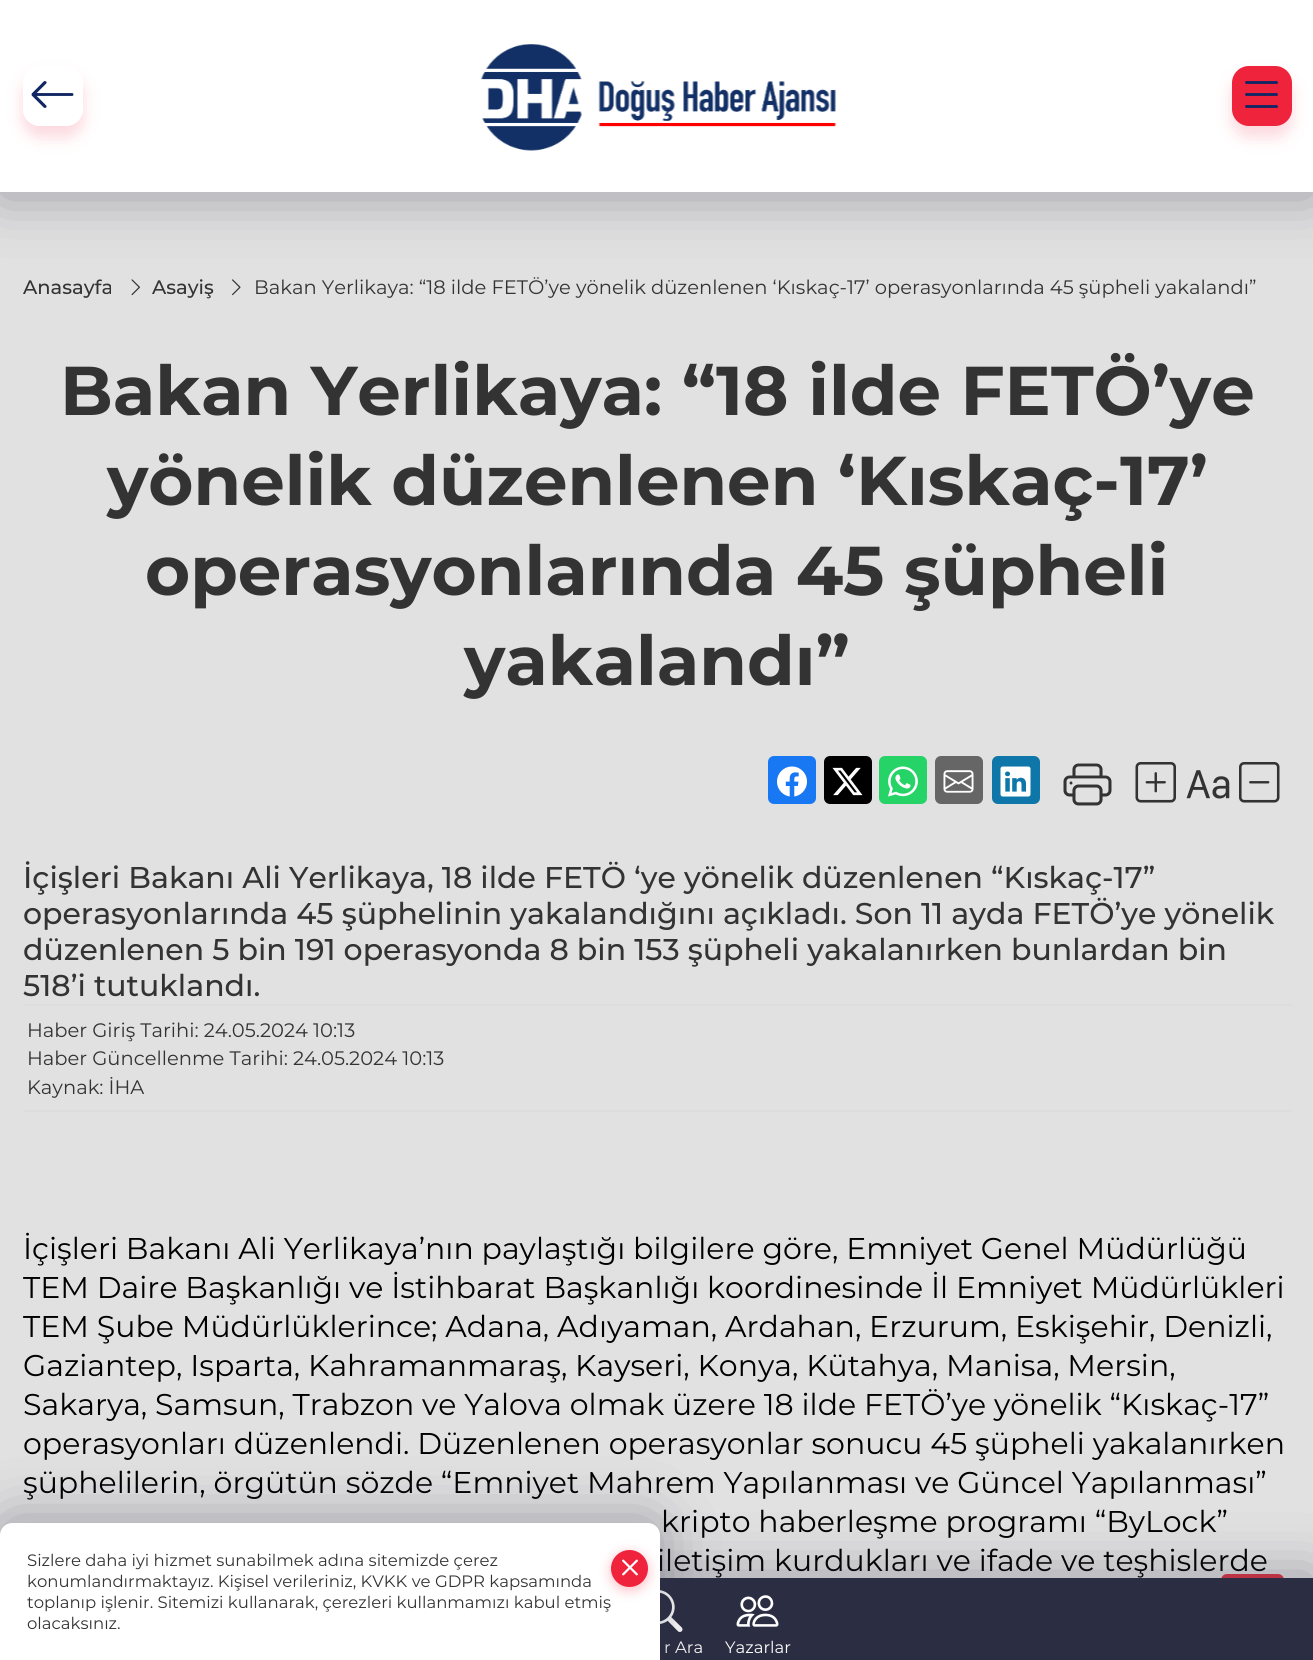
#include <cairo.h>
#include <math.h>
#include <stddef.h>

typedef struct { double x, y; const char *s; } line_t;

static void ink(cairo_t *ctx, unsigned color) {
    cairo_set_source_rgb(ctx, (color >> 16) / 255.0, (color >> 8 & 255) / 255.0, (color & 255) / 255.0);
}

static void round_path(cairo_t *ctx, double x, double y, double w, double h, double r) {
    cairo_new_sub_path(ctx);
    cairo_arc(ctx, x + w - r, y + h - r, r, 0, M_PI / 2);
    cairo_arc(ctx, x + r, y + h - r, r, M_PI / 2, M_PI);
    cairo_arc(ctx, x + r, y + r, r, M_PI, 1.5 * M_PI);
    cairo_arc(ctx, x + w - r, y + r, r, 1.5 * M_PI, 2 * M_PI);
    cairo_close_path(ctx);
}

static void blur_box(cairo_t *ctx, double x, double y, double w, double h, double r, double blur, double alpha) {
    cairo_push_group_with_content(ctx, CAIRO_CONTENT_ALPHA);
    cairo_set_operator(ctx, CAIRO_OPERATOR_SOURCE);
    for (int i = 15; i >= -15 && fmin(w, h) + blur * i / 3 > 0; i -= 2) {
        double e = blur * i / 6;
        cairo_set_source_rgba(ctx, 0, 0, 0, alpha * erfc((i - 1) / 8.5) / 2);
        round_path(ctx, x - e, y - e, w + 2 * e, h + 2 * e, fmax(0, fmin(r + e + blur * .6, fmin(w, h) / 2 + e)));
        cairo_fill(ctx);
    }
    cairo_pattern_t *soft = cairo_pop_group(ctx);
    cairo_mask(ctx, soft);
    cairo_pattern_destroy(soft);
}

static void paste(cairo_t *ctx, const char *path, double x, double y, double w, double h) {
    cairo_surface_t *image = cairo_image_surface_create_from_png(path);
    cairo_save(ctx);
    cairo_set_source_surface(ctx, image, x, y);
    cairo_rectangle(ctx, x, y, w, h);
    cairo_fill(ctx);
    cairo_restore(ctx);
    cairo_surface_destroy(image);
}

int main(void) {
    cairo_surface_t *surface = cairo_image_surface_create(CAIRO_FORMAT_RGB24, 1313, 1660);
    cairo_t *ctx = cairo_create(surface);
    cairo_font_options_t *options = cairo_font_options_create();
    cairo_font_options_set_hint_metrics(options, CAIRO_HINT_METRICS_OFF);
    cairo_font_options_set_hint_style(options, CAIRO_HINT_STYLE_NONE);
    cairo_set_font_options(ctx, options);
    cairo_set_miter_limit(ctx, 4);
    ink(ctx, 0xE1E1E1);
    cairo_paint(ctx);
    paste(ctx, "media/4.png", 131, 279, 9, 17);
    paste(ctx, "media/5.png", 232, 279, 9, 17);
    ink(ctx, 0x2B2D42);
    blur_box(ctx, 0, 5, 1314, 192, 0, 28.5, 0.36);
    ink(ctx, 0xFFFFFF);
    cairo_rectangle(ctx, 0, 0, 1313, 192);
    cairo_fill(ctx);
    cairo_save(ctx);
    cairo_set_fill_rule(ctx, CAIRO_FILL_RULE_EVEN_ODD);
    cairo_new_path(ctx);
    cairo_move_to(ctx, 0, 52);
    cairo_line_to(ctx, 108, 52);
    cairo_line_to(ctx, 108, 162);
    cairo_line_to(ctx, 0, 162);
    cairo_close_path(ctx);
    cairo_move_to(ctx, 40, 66);
    cairo_line_to(ctx, 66, 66);
    cairo_curve_to(ctx, 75.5, 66, 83, 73.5, 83, 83);
    cairo_line_to(ctx, 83, 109);
    cairo_curve_to(ctx, 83, 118.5, 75.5, 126, 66, 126);
    cairo_line_to(ctx, 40, 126);
    cairo_curve_to(ctx, 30.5, 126, 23, 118.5, 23, 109);
    cairo_line_to(ctx, 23, 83);
    cairo_curve_to(ctx, 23, 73.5, 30.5, 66, 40, 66);
    cairo_close_path(ctx);
    cairo_clip(ctx);
    ink(ctx, 0xEF233C);
    blur_box(ctx, 23, 77, 60, 60, 17, 8, 0.18);
    cairo_restore(ctx);
    paste(ctx, "media/1.png", 31, 81, 43, 27);
    paste(ctx, "media/2.png", 480, 44, 357, 107);
    ink(ctx, 0xEF233C);
    blur_box(ctx, 1232, 77, 60, 60, 17, 8, 0.18);
    ink(ctx, 0xEF233C);
    round_path(ctx, 1232, 66, 60, 60, 17);
    cairo_fill(ctx);
    paste(ctx, "media/3.png", 1245, 81, 33, 27);
    cairo_select_font_face(ctx, "Montserrat Medium", CAIRO_FONT_SLANT_NORMAL, CAIRO_FONT_WEIGHT_NORMAL);
    cairo_set_font_size(ctx, 19.5);
    ink(ctx, 0x333333);
    cairo_move_to(ctx, 23, 294);
    cairo_show_text(ctx, "Anasayfa");
    cairo_move_to(ctx, 152, 294);
    cairo_show_text(ctx, "Asayiş");
    cairo_select_font_face(ctx, "Montserrat", CAIRO_FONT_SLANT_NORMAL, CAIRO_FONT_WEIGHT_NORMAL);
    cairo_move_to(ctx, 254, 294);
    cairo_show_text(ctx, "Bakan Yerlikaya: “18 ilde FETÖ’ye yönelik düzenlenen ‘Kıskaç-17’ operasyonlarında 45 şüpheli yakalandı”");
    cairo_select_font_face(ctx, "Montserrat", CAIRO_FONT_SLANT_NORMAL, CAIRO_FONT_WEIGHT_BOLD);
    cairo_set_font_size(ctx, 69);
    {
        static const line_t items[] = {
            {60, 415, "Bakan Yerlikaya: “18 ilde FETÖ’ye"},
            {107, 505, "yönelik düzenlenen ‘Kıskaç-17’"},
            {145, 595, "operasyonlarında 45 şüpheli"},
            {464, 685, "yakalandı”"},
        };
        for (size_t i = 0; i < sizeof items / sizeof *items; i++) {
            cairo_move_to(ctx, items[i].x, items[i].y);
            cairo_show_text(ctx, items[i].s);
        }
    }
    ink(ctx, 0x1877F2);
    round_path(ctx, 768, 756, 48, 48, 6);
    cairo_fill(ctx);
    paste(ctx, "media/6.png", 777, 766, 30, 31);
    ink(ctx, 0x000000);
    round_path(ctx, 824, 756, 48, 48, 6);
    cairo_fill(ctx);
    paste(ctx, "media/7.png", 832, 767, 31, 29);
    ink(ctx, 0x25D366);
    round_path(ctx, 879, 756, 48, 48, 6);
    cairo_fill(ctx);
    paste(ctx, "media/8.png", 888, 766, 30, 31);
    ink(ctx, 0x666666);
    round_path(ctx, 935, 756, 48, 48, 6);
    cairo_fill(ctx);
    paste(ctx, "media/9.png", 943, 770, 31, 23);
    ink(ctx, 0x0E76A8);
    round_path(ctx, 992, 756, 48, 48, 6);
    cairo_fill(ctx);
    paste(ctx, "media/10.png", 1000, 766, 31, 31);
    paste(ctx, "media/11.png", 1063, 763, 49, 43);
    paste(ctx, "media/12.png", 1135, 762, 41, 41);
    paste(ctx, "media/13.png", 1186, 770, 44, 29);
    paste(ctx, "media/14.png", 1239, 762, 41, 41);
    cairo_select_font_face(ctx, "Montserrat Medium", CAIRO_FONT_SLANT_NORMAL, CAIRO_FONT_WEIGHT_NORMAL);
    cairo_set_font_size(ctx, 30);
    ink(ctx, 0x333333);
    {
        static const line_t items[] = {
            {23, 888, "İçişleri Bakanı Ali Yerlikaya, 18 ilde FETÖ ‘ye yönelik düzenlenen “Kıskaç-17”"},
            {23, 924, "operasyonlarında 45 şüphelinin yakalandığını açıkladı. Son 11 ayda FETÖ’ye yönelik"},
            {23, 960, "düzenlenen 5 bin 191 operasyonda 8 bin 153 şüpheli yakalanırken bunlardan bin"},
            {23, 996, "518’i tutuklandı."},
        };
        for (size_t i = 0; i < sizeof items / sizeof *items; i++) {
            cairo_move_to(ctx, items[i].x, items[i].y);
            cairo_show_text(ctx, items[i].s);
        }
    }
    ink(ctx, 0xDDDDDD);
    cairo_rectangle(ctx, 23, 1004, 1269, 2);
    cairo_fill(ctx);
    cairo_rectangle(ctx, 23, 1110, 1269, 2);
    cairo_fill(ctx);
    cairo_select_font_face(ctx, "Montserrat", CAIRO_FONT_SLANT_NORMAL, CAIRO_FONT_WEIGHT_NORMAL);
    cairo_set_font_size(ctx, 19.5);
    ink(ctx, 0x333333);
    {
        static const line_t items[] = {
            {27, 1037, "Haber Giriş Tarihi: 24.05.2024 10:13"},
            {27, 1065, "Haber Güncellenme Tarihi: 24.05.2024 10:13"},
            {27, 1094, "Kaynak: İHA"},
        };
        for (size_t i = 0; i < sizeof items / sizeof *items; i++) {
            cairo_move_to(ctx, items[i].x, items[i].y);
            cairo_show_text(ctx, items[i].s);
        }
    }
    cairo_set_font_size(ctx, 30);
    ink(ctx, 0x000000);
    {
        static const line_t items[] = {
            {23, 1259, "İçişleri Bakanı Ali Yerlikaya’nın paylaştığı bilgilere göre, Emniyet Genel Müdürlüğü"},
            {23, 1298, "TEM Daire Başkanlığı ve İstihbarat Başkanlığı koordinesinde İl Emniyet Müdürlükleri"},
            {23, 1337, "TEM Şube Müdürlüklerince; Adana, Adıyaman, Ardahan, Erzurum, Eskişehir, Denizli,"},
            {23, 1376, "Gaziantep, Isparta, Kahramanmaraş, Kayseri, Konya, Kütahya, Manisa, Mersin,"},
            {23, 1415, "Sakarya, Samsun, Trabzon ve Yalova olmak üzere 18 ilde FETÖ’ye yönelik “Kıskaç-17”"},
            {23, 1454, "operasyonları düzenlendi. Düzenlenen operasyonlar sonucu 45 şüpheli yakalanırken"},
            {23, 1493, "şüphelilerin, örgütün sözde “Emniyet Mahrem Yapılanması ve Güncel Yapılanması”"},
            {661, 1532, "kripto haberleşme programı “ByLock”"},
            {657, 1571, "iletişim kurdukları ve ifade ve teşhislerde"},
        };
        for (size_t i = 0; i < sizeof items / sizeof *items; i++) {
            cairo_move_to(ctx, items[i].x, items[i].y);
            cairo_show_text(ctx, items[i].s);
        }
    }
    ink(ctx, 0xDC3545);
    round_path(ctx, 1222, 1575, 61, 55, 5);
    cairo_fill_preserve(ctx);
    cairo_stroke(ctx);
    ink(ctx, 0x2B2D42);
    blur_box(ctx, 0, 1574, 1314, 82, 0, 28.5, 0.36);
    ink(ctx, 0x2B2D42);
    cairo_rectangle(ctx, 660, 1578, 653, 82);
    cairo_fill(ctx);
    paste(ctx, "media/15.png", 660, 1590, 23, 42);
    cairo_set_font_size(ctx, 16.5);
    ink(ctx, 0xFFFFFF);
    cairo_move_to(ctx, 664, 1653);
    cairo_show_text(ctx, "r Ara");
    paste(ctx, "media/16.png", 736, 1595, 43, 32);
    cairo_move_to(ctx, 725, 1653);
    cairo_show_text(ctx, "Yazarlar");
    ink(ctx, 0x2B2D42);
    blur_box(ctx, 0, 1518, 660, 138, 12, 28.5, 0.36);
    ink(ctx, 0xFFFFFF);
    cairo_new_path(ctx);
    cairo_move_to(ctx, 12, 1523);
    cairo_line_to(ctx, 648, 1523);
    cairo_curve_to(ctx, 654.5, 1523, 660, 1528.5, 660, 1535);
    cairo_line_to(ctx, 660, 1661);
    cairo_line_to(ctx, 0, 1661);
    cairo_line_to(ctx, 0, 1535);
    cairo_curve_to(ctx, 0, 1528.5, 5.5, 1523, 12, 1523);
    cairo_close_path(ctx);
    cairo_fill(ctx);
    ink(ctx, 0x333333);
    cairo_move_to(ctx, 27, 1566);
    cairo_show_text(ctx, "Sizlere daha iyi hizmet sunabilmek adına sitemizde çerez");
    ink(ctx, 0xFF566A);
    blur_box(ctx, 611, 1553, 37, 37, 18.5, 6, 0.38);
    ink(ctx, 0xEF233C);
    cairo_arc(ctx, 629.5, 1568.5, 18.5, 0, 2 * M_PI);
    cairo_fill(ctx);
    paste(ctx, "media/17.png", 622, 1559, 16, 17);
    ink(ctx, 0x333333);
    {
        static const line_t items[] = {
            {27, 1587, "konumlandırmaktayız. Kişisel verileriniz, KVKK ve GDPR kapsamında"},
            {27, 1608, "toplanıp işlenir. Sitemizi kullanarak, çerezleri kullanmamızı kabul etmiş"},
            {27, 1629, "olacaksınız."},
        };
        for (size_t i = 0; i < sizeof items / sizeof *items; i++) {
            cairo_move_to(ctx, items[i].x, items[i].y);
            cairo_show_text(ctx, items[i].s);
        }
    }
    cairo_surface_write_to_png(surface, "image.png");
    cairo_font_options_destroy(options);
    cairo_destroy(ctx);
    cairo_surface_destroy(surface);
    return 0;
}
